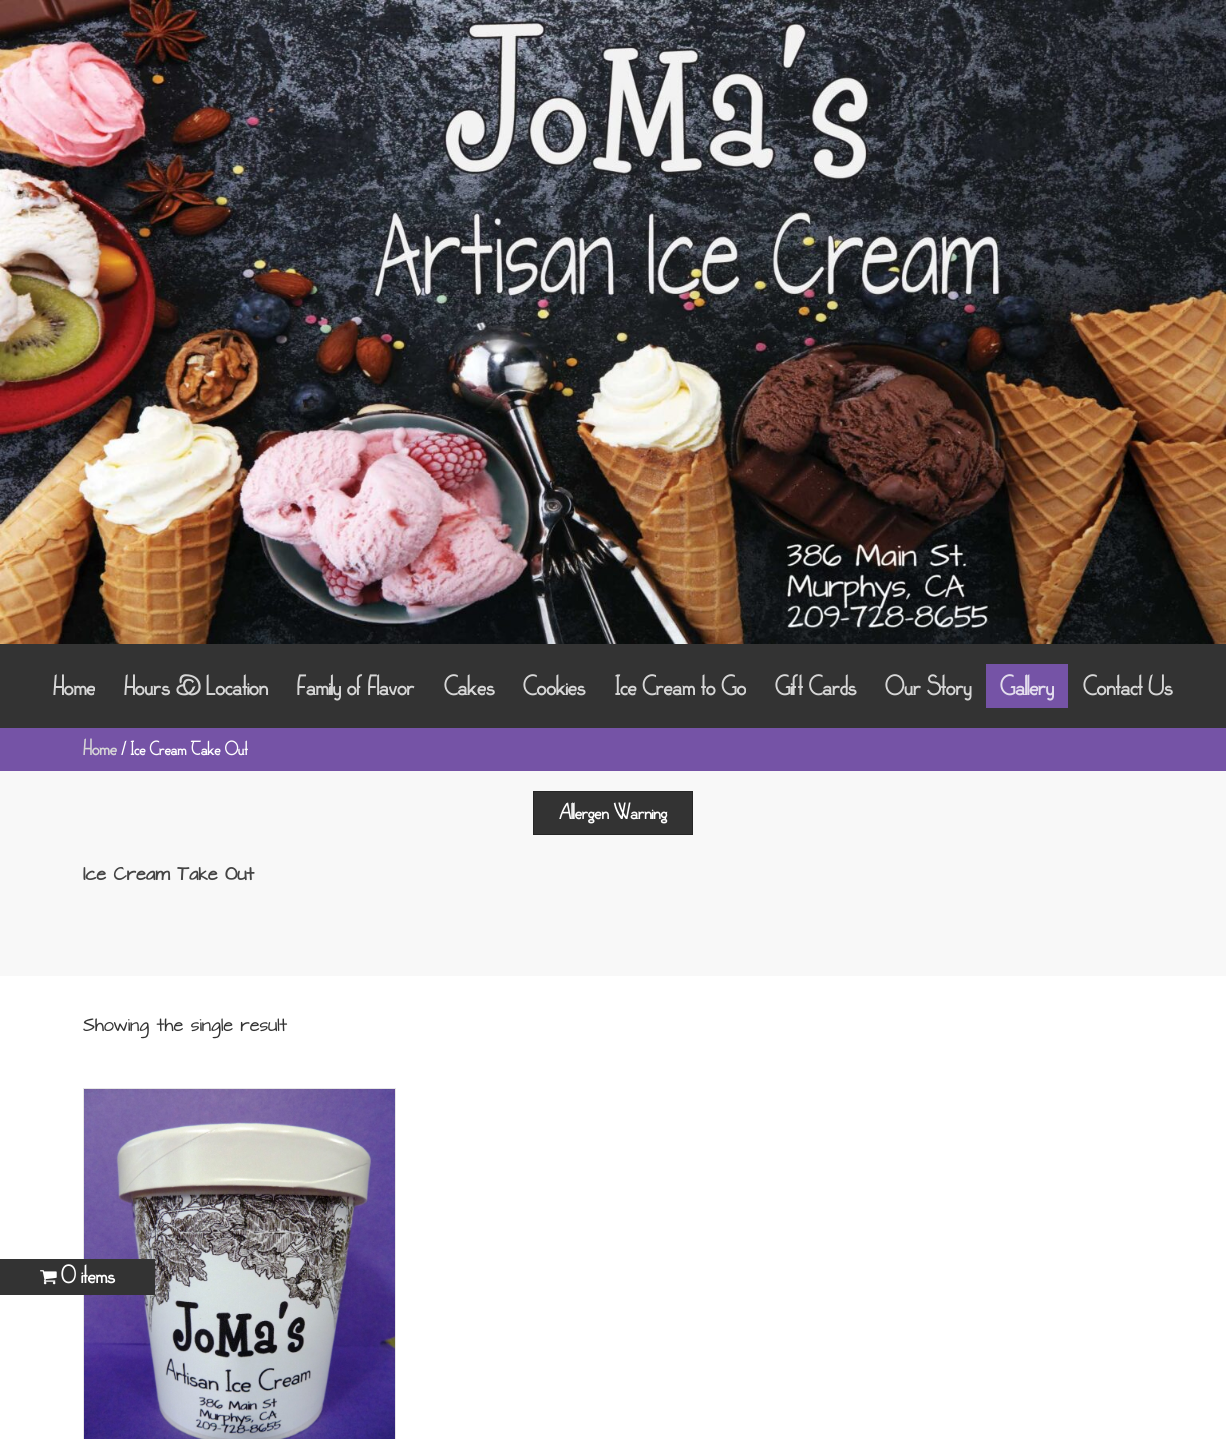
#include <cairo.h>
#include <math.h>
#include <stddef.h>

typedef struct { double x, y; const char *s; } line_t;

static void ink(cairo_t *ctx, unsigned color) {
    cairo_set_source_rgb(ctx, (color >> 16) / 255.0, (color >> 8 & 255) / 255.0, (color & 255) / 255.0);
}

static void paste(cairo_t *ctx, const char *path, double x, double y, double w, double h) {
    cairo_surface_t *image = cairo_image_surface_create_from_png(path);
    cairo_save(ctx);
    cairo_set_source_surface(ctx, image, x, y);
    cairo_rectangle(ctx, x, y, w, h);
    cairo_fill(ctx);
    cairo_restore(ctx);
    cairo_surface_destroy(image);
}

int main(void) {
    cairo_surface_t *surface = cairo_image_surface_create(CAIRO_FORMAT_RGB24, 1226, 1439);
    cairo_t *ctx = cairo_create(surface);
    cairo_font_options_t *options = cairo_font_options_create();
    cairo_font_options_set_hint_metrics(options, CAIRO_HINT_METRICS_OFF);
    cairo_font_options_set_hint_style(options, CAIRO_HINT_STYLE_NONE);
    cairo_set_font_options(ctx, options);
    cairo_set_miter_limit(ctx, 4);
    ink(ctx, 0xFFFFFF);
    cairo_paint(ctx);
    paste(ctx, "media/1.png", 0, 0, 1226, 644);
    ink(ctx, 0x333333);
    cairo_rectangle(ctx, 0, 644, 1226, 84);
    cairo_fill(ctx);
    cairo_select_font_face(ctx, "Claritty", CAIRO_FONT_SLANT_NORMAL, CAIRO_FONT_WEIGHT_BOLD);
    cairo_set_font_size(ctx, 20);
    ink(ctx, 0xD6D6D6);
    {
        static const line_t items[] = {
            {53, 695, "Home"},
            {124, 695, "Hours & Location"},
            {297, 695, "Family of Flavor"},
            {444, 695, "Cakes"},
            {523, 695, "Cookies"},
            {615, 695, "Ice Cream to Go"},
            {775, 695, "Gift Cards"},
            {885, 695, "Our Story"},
        };
        for (size_t i = 0; i < sizeof items / sizeof *items; i++) {
            cairo_move_to(ctx, items[i].x, items[i].y);
            cairo_show_text(ctx, items[i].s);
        }
    }
    ink(ctx, 0x7553A6);
    cairo_rectangle(ctx, 986, 664, 82, 44);
    cairo_fill(ctx);
    ink(ctx, 0xE3DDED);
    cairo_move_to(ctx, 1000, 695);
    cairo_show_text(ctx, "Gallery");
    ink(ctx, 0xD6D6D6);
    cairo_move_to(ctx, 1083, 695);
    cairo_show_text(ctx, "Contact Us");
    cairo_rectangle(ctx, 83.5, 1088.5, 312, 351);
    ink(ctx, 0xE6E6E6);
    cairo_set_line_width(ctx, 1);
    cairo_stroke(ctx);
    paste(ctx, "media/3.png", 84, 1089, 311, 350);
    ink(ctx, 0x333333);
    cairo_rectangle(ctx, 0, 1259, 155, 36);
    cairo_fill(ctx);
    paste(ctx, "media/2.png", 40, 1270, 17, 15);
    cairo_set_font_size(ctx, 18);
    ink(ctx, 0xFFFFFF);
    cairo_move_to(ctx, 61, 1283);
    cairo_show_text(ctx, "0 items");
    ink(ctx, 0x7553A6);
    cairo_rectangle(ctx, 0, 728, 1226, 43);
    cairo_fill(ctx);
    cairo_set_font_size(ctx, 16);
    ink(ctx, 0xD6D6D6);
    cairo_move_to(ctx, 83, 755);
    cairo_show_text(ctx, "Home");
    cairo_set_font_size(ctx, 14);
    ink(ctx, 0xFFFFFF);
    cairo_move_to(ctx, 121, 755);
    cairo_show_text(ctx, "/ Ice Cream Take Out");
    ink(ctx, 0xF8F8F8);
    cairo_rectangle(ctx, 0, 771, 1226, 205);
    cairo_fill(ctx);
    ink(ctx, 0x333333);
    cairo_rectangle(ctx, 533.5, 791.5, 159, 43);
    cairo_fill_preserve(ctx);
    ink(ctx, 0x272727);
    cairo_stroke(ctx);
    cairo_set_font_size(ctx, 16);
    ink(ctx, 0xFFFFFF);
    cairo_move_to(ctx, 559, 819);
    cairo_show_text(ctx, "Allergen Warning");
    cairo_select_font_face(ctx, "Architects Daughter", CAIRO_FONT_SLANT_NORMAL, CAIRO_FONT_WEIGHT_BOLD);
    cairo_set_font_size(ctx, 15);
    ink(ctx, 0x444444);
    cairo_move_to(ctx, 83, 880);
    cairo_show_text(ctx, "Ice Cream Take Out");
    cairo_select_font_face(ctx, "Architects Daughter", CAIRO_FONT_SLANT_NORMAL, CAIRO_FONT_WEIGHT_NORMAL);
    ink(ctx, 0x333333);
    cairo_move_to(ctx, 83, 1031);
    cairo_show_text(ctx, "Showing the single result");
    cairo_surface_write_to_png(surface, "image.png");
    cairo_font_options_destroy(options);
    cairo_destroy(ctx);
    cairo_surface_destroy(surface);
    return 0;
}
